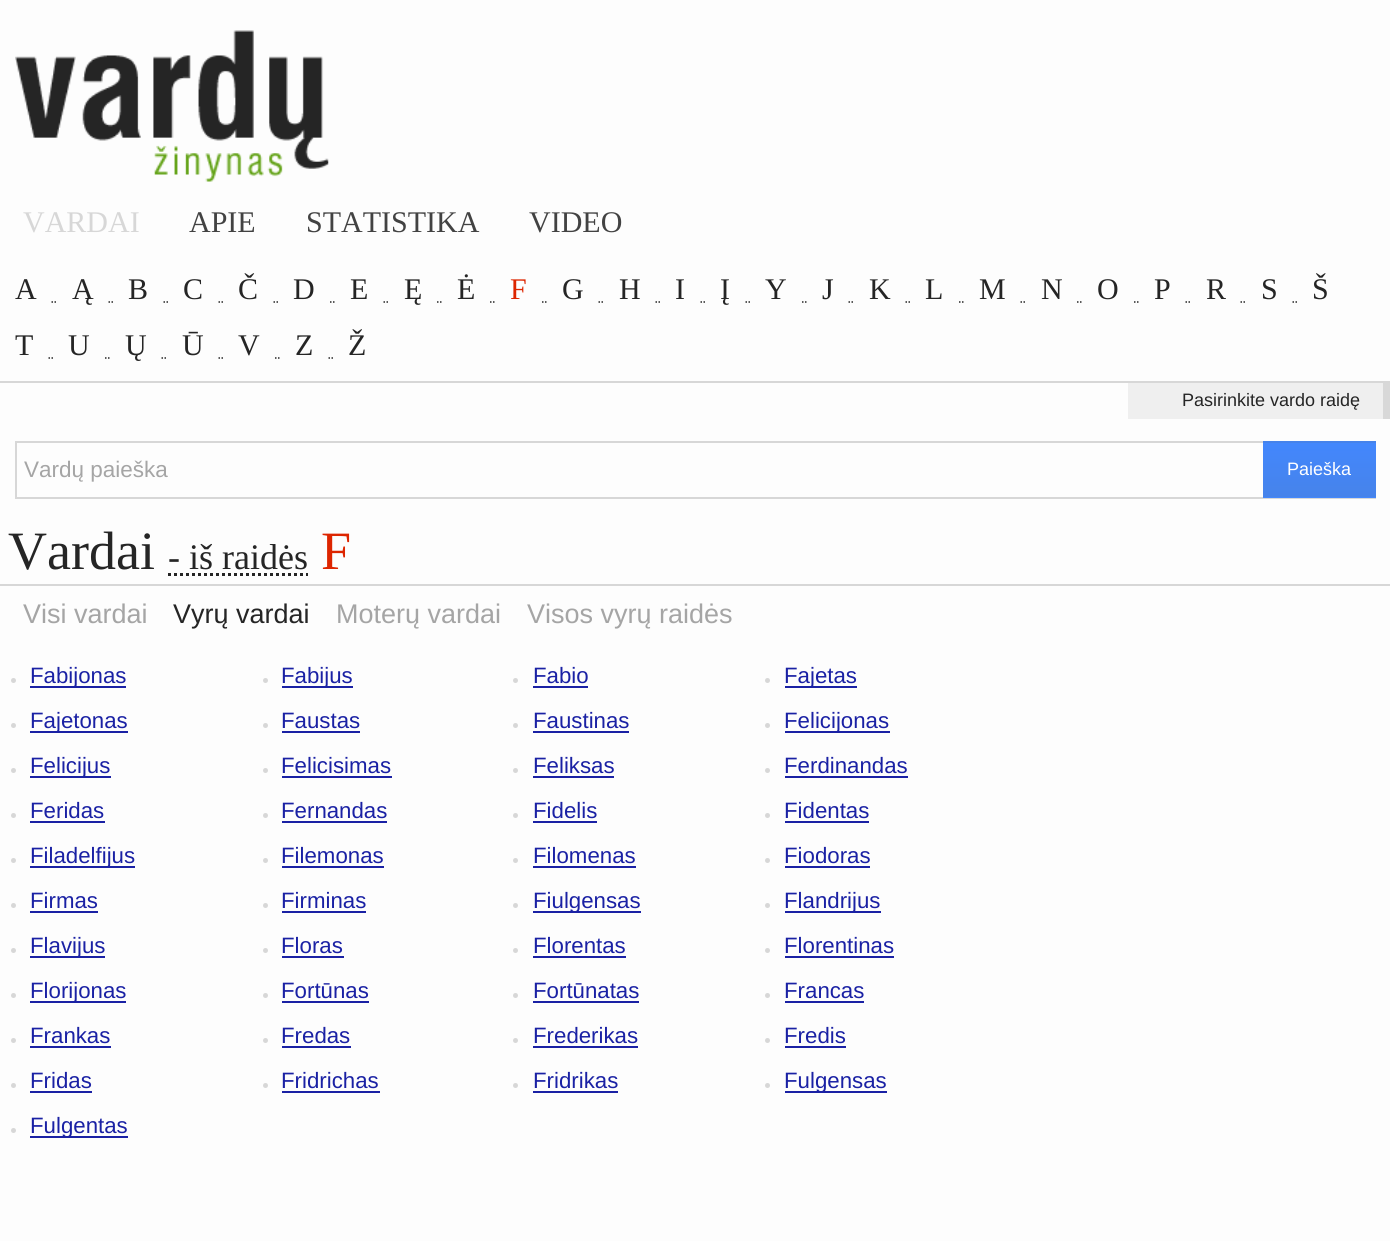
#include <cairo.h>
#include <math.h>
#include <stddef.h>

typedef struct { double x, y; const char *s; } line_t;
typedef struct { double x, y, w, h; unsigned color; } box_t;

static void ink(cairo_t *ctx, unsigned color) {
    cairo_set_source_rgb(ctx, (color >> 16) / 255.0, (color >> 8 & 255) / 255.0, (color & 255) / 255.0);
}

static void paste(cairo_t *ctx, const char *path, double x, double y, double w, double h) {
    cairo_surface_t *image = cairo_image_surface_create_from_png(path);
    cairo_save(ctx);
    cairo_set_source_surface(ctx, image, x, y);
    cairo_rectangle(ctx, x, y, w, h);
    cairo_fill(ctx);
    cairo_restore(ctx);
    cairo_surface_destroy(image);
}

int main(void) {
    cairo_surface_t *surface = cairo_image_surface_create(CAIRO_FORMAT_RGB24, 1390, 1241);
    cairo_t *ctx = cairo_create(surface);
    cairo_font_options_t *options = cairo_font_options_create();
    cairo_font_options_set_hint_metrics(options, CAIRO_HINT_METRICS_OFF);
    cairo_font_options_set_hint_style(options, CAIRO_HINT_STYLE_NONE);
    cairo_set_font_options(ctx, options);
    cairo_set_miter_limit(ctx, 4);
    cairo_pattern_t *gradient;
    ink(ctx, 0xFDFDFD);
    cairo_paint(ctx);
    paste(ctx, "media/1.png", 15, 30, 314, 152);
    cairo_select_font_face(ctx, "Liberation Serif", CAIRO_FONT_SLANT_NORMAL, CAIRO_FONT_WEIGHT_NORMAL);
    cairo_set_font_size(ctx, 30);
    ink(ctx, 0xD7D7D7);
    cairo_move_to(ctx, 23, 232);
    cairo_show_text(ctx, "VARDAI");
    ink(ctx, 0x424242);
    {
        static const line_t items[] = {
            {189, 232, "APIE"},
            {306, 232, "STATISTIKA"},
            {529, 232, "VIDEO"},
        };
        for (size_t i = 0; i < sizeof items / sizeof *items; i++) {
            cairo_move_to(ctx, items[i].x, items[i].y);
            cairo_show_text(ctx, items[i].s);
        }
    }
    ink(ctx, 0xD7D7D7);
    cairo_rectangle(ctx, 0, 381, 1390, 2);
    cairo_fill(ctx);
    ink(ctx, 0x252525);
    {
        static const line_t items[] = {
            {15, 299, "A"},
            {72, 299, "Ą"},
            {128, 299, "B"},
            {183, 299, "C"},
            {238, 299, "Č"},
            {293, 299, "D"},
            {350, 299, "E"},
            {404, 299, "Ę"},
            {457, 299, "Ė"},
        };
        for (size_t i = 0; i < sizeof items / sizeof *items; i++) {
            cairo_move_to(ctx, items[i].x, items[i].y);
            cairo_show_text(ctx, items[i].s);
        }
    }
    ink(ctx, 0xDD2500);
    cairo_move_to(ctx, 510, 299);
    cairo_show_text(ctx, "F");
    ink(ctx, 0x252525);
    {
        static const line_t items[] = {
            {562, 299, "G"},
            {619, 299, "H"},
            {675, 299, "I"},
            {720, 299, "Į"},
            {765, 299, "Y"},
            {822, 299, "J"},
            {869, 299, "K"},
            {925, 299, "L"},
            {979, 299, "M"},
            {1041, 299, "N"},
            {1097, 299, "O"},
            {1154, 299, "P"},
            {1206, 299, "R"},
            {1261, 299, "S"},
            {1312, 299, "Š"},
        };
        for (size_t i = 0; i < sizeof items / sizeof *items; i++) {
            cairo_move_to(ctx, items[i].x, items[i].y);
            cairo_show_text(ctx, items[i].s);
        }
    }
    cairo_new_path(ctx);
    cairo_move_to(ctx, 51.5, 302);
    cairo_line_to(ctx, 53, 302);
    cairo_move_to(ctx, 54.5, 302);
    cairo_line_to(ctx, 56, 302);
    cairo_set_line_width(ctx, 1.5);
    cairo_stroke(ctx);
    cairo_new_path(ctx);
    cairo_move_to(ctx, 108.5, 302);
    cairo_line_to(ctx, 110, 302);
    cairo_move_to(ctx, 111.5, 302);
    cairo_line_to(ctx, 113, 302);
    cairo_stroke(ctx);
    cairo_new_path(ctx);
    cairo_move_to(ctx, 163.5, 302);
    cairo_line_to(ctx, 165, 302);
    cairo_move_to(ctx, 166.5, 302);
    cairo_line_to(ctx, 168, 302);
    cairo_stroke(ctx);
    cairo_new_path(ctx);
    cairo_move_to(ctx, 218.5, 302);
    cairo_line_to(ctx, 220, 302);
    cairo_move_to(ctx, 221.5, 302);
    cairo_line_to(ctx, 223, 302);
    cairo_stroke(ctx);
    cairo_new_path(ctx);
    cairo_move_to(ctx, 273.5, 302);
    cairo_line_to(ctx, 275, 302);
    cairo_move_to(ctx, 276.5, 302);
    cairo_line_to(ctx, 278, 302);
    cairo_stroke(ctx);
    cairo_new_path(ctx);
    cairo_move_to(ctx, 330, 302);
    cairo_line_to(ctx, 331.5, 302);
    cairo_move_to(ctx, 333, 302);
    cairo_line_to(ctx, 334.5, 302);
    cairo_stroke(ctx);
    cairo_new_path(ctx);
    cairo_move_to(ctx, 383.5, 302);
    cairo_line_to(ctx, 385, 302);
    cairo_move_to(ctx, 386.5, 302);
    cairo_line_to(ctx, 388, 302);
    cairo_stroke(ctx);
    cairo_new_path(ctx);
    cairo_move_to(ctx, 437, 302);
    cairo_line_to(ctx, 438.5, 302);
    cairo_move_to(ctx, 440, 302);
    cairo_line_to(ctx, 441.5, 302);
    cairo_stroke(ctx);
    cairo_new_path(ctx);
    cairo_move_to(ctx, 490, 302);
    cairo_line_to(ctx, 491.5, 302);
    cairo_move_to(ctx, 493, 302);
    cairo_line_to(ctx, 494.5, 302);
    cairo_stroke(ctx);
    cairo_new_path(ctx);
    cairo_move_to(ctx, 542, 302);
    cairo_line_to(ctx, 543.5, 302);
    cairo_move_to(ctx, 545, 302);
    cairo_line_to(ctx, 546.5, 302);
    cairo_stroke(ctx);
    cairo_new_path(ctx);
    cairo_move_to(ctx, 598.5, 302);
    cairo_line_to(ctx, 600, 302);
    cairo_move_to(ctx, 601.5, 302);
    cairo_line_to(ctx, 603, 302);
    cairo_stroke(ctx);
    cairo_new_path(ctx);
    cairo_move_to(ctx, 655.5, 302);
    cairo_line_to(ctx, 657, 302);
    cairo_move_to(ctx, 658.5, 302);
    cairo_line_to(ctx, 660, 302);
    cairo_stroke(ctx);
    cairo_new_path(ctx);
    cairo_move_to(ctx, 700.5, 302);
    cairo_line_to(ctx, 702, 302);
    cairo_move_to(ctx, 703.5, 302);
    cairo_line_to(ctx, 705, 302);
    cairo_stroke(ctx);
    cairo_new_path(ctx);
    cairo_move_to(ctx, 745.5, 302);
    cairo_line_to(ctx, 747, 302);
    cairo_move_to(ctx, 748.5, 302);
    cairo_line_to(ctx, 750, 302);
    cairo_stroke(ctx);
    cairo_new_path(ctx);
    cairo_move_to(ctx, 802, 302);
    cairo_line_to(ctx, 803.5, 302);
    cairo_move_to(ctx, 805, 302);
    cairo_line_to(ctx, 806.5, 302);
    cairo_stroke(ctx);
    cairo_new_path(ctx);
    cairo_move_to(ctx, 848.5, 302);
    cairo_line_to(ctx, 850, 302);
    cairo_move_to(ctx, 851.5, 302);
    cairo_line_to(ctx, 853, 302);
    cairo_stroke(ctx);
    cairo_new_path(ctx);
    cairo_move_to(ctx, 905.5, 302);
    cairo_line_to(ctx, 907, 302);
    cairo_move_to(ctx, 908.5, 302);
    cairo_line_to(ctx, 910, 302);
    cairo_stroke(ctx);
    cairo_new_path(ctx);
    cairo_move_to(ctx, 959, 302);
    cairo_line_to(ctx, 960.5, 302);
    cairo_move_to(ctx, 962, 302);
    cairo_line_to(ctx, 963.5, 302);
    cairo_stroke(ctx);
    cairo_new_path(ctx);
    cairo_move_to(ctx, 1020.5, 302);
    cairo_line_to(ctx, 1022, 302);
    cairo_move_to(ctx, 1023.5, 302);
    cairo_line_to(ctx, 1025, 302);
    cairo_stroke(ctx);
    cairo_new_path(ctx);
    cairo_move_to(ctx, 1077, 302);
    cairo_line_to(ctx, 1078.5, 302);
    cairo_move_to(ctx, 1080, 302);
    cairo_line_to(ctx, 1081.5, 302);
    cairo_stroke(ctx);
    cairo_new_path(ctx);
    cairo_move_to(ctx, 1134, 302);
    cairo_line_to(ctx, 1135.5, 302);
    cairo_move_to(ctx, 1137, 302);
    cairo_line_to(ctx, 1138.5, 302);
    cairo_stroke(ctx);
    cairo_new_path(ctx);
    cairo_move_to(ctx, 1185.5, 302);
    cairo_line_to(ctx, 1187, 302);
    cairo_move_to(ctx, 1188.5, 302);
    cairo_line_to(ctx, 1190, 302);
    cairo_stroke(ctx);
    cairo_new_path(ctx);
    cairo_move_to(ctx, 1240.5, 302);
    cairo_line_to(ctx, 1242, 302);
    cairo_move_to(ctx, 1243.5, 302);
    cairo_line_to(ctx, 1245, 302);
    cairo_stroke(ctx);
    cairo_new_path(ctx);
    cairo_move_to(ctx, 1292.5, 302);
    cairo_line_to(ctx, 1294, 302);
    cairo_move_to(ctx, 1295.5, 302);
    cairo_line_to(ctx, 1297, 302);
    cairo_stroke(ctx);
    {
        static const line_t items[] = {
            {15, 355, "T"},
            {68, 355, "U"},
            {125, 355, "Ų"},
            {182, 355, "Ū"},
            {238, 355, "V"},
            {295, 355, "Z"},
            {348, 355, "Ž"},
        };
        for (size_t i = 0; i < sizeof items / sizeof *items; i++) {
            cairo_move_to(ctx, items[i].x, items[i].y);
            cairo_show_text(ctx, items[i].s);
        }
    }
    cairo_new_path(ctx);
    cairo_move_to(ctx, 48.5, 358);
    cairo_line_to(ctx, 50, 358);
    cairo_move_to(ctx, 51.5, 358);
    cairo_line_to(ctx, 53, 358);
    cairo_stroke(ctx);
    cairo_new_path(ctx);
    cairo_move_to(ctx, 105, 358);
    cairo_line_to(ctx, 106.5, 358);
    cairo_move_to(ctx, 108, 358);
    cairo_line_to(ctx, 109.5, 358);
    cairo_stroke(ctx);
    cairo_new_path(ctx);
    cairo_move_to(ctx, 161.5, 358);
    cairo_line_to(ctx, 163, 358);
    cairo_move_to(ctx, 164.5, 358);
    cairo_line_to(ctx, 166, 358);
    cairo_stroke(ctx);
    cairo_new_path(ctx);
    cairo_move_to(ctx, 218.5, 358);
    cairo_line_to(ctx, 220, 358);
    cairo_move_to(ctx, 221.5, 358);
    cairo_line_to(ctx, 223, 358);
    cairo_stroke(ctx);
    cairo_new_path(ctx);
    cairo_move_to(ctx, 275, 358);
    cairo_line_to(ctx, 276.5, 358);
    cairo_move_to(ctx, 278, 358);
    cairo_line_to(ctx, 279.5, 358);
    cairo_stroke(ctx);
    cairo_new_path(ctx);
    cairo_move_to(ctx, 328.5, 358);
    cairo_line_to(ctx, 330, 358);
    cairo_move_to(ctx, 331.5, 358);
    cairo_line_to(ctx, 333, 358);
    cairo_stroke(ctx);
    ink(ctx, 0xEFEFEF);
    cairo_rectangle(ctx, 1128, 383, 255, 36);
    cairo_fill(ctx);
    ink(ctx, 0xD8D8D8);
    cairo_rectangle(ctx, 1383, 383, 7, 36);
    cairo_fill(ctx);
    cairo_select_font_face(ctx, "Liberation Sans", CAIRO_FONT_SLANT_NORMAL, CAIRO_FONT_WEIGHT_NORMAL);
    cairo_set_font_size(ctx, 18);
    ink(ctx, 0x252525);
    cairo_move_to(ctx, 1182, 406);
    cairo_show_text(ctx, "Pasirinkite vardo raidę");
    {
        static const box_t items[] = {
            {15, 441, 1248, 2, 0xD7D7D7},
            {15, 497, 1361, 2, 0xD7D7D7},
            {15, 441, 2, 57, 0xD7D7D7},
        };
        for (size_t i = 0; i < sizeof items / sizeof *items; i++) {
            ink(ctx, items[i].color);
            cairo_rectangle(ctx, items[i].x, items[i].y, items[i].w, items[i].h);
            cairo_fill(ctx);
        }
    }
    cairo_set_font_size(ctx, 22.5);
    ink(ctx, 0xA5A5A5);
    cairo_move_to(ctx, 24, 477);
    cairo_show_text(ctx, "Vardų paieška");
    gradient = cairo_pattern_create_linear(1319, 389, 1319, 443);
    cairo_pattern_add_color_stop_rgba(gradient, 0, 0.263, 0.529, 0.992, 1);
    cairo_pattern_add_color_stop_rgba(gradient, 1, 0.275, 0.514, 0.918, 1);
    cairo_set_source(ctx, gradient);
    cairo_pattern_destroy(gradient);
    cairo_rectangle(ctx, 1263, 441, 113, 2);
    cairo_fill(ctx);
    gradient = cairo_pattern_create_linear(1319, 443, 1319, 497);
    cairo_pattern_add_color_stop_rgba(gradient, 0, 0.263, 0.529, 0.992, 1);
    cairo_pattern_add_color_stop_rgba(gradient, 1, 0.275, 0.514, 0.918, 1);
    cairo_set_source(ctx, gradient);
    cairo_pattern_destroy(gradient);
    cairo_rectangle(ctx, 1263, 443, 113, 54);
    cairo_fill(ctx);
    gradient = cairo_pattern_create_linear(1319, 497, 1319, 551);
    cairo_pattern_add_color_stop_rgba(gradient, 0, 0.263, 0.529, 0.992, 1);
    cairo_pattern_add_color_stop_rgba(gradient, 1, 0.275, 0.514, 0.918, 1);
    cairo_set_source(ctx, gradient);
    cairo_pattern_destroy(gradient);
    cairo_rectangle(ctx, 1263, 497, 113, 1);
    cairo_fill(ctx);
    cairo_set_font_size(ctx, 18);
    ink(ctx, 0xFFFFFF);
    cairo_move_to(ctx, 1287, 475);
    cairo_show_text(ctx, "Paieška");
    ink(ctx, 0xD7D7D7);
    cairo_rectangle(ctx, 0, 584, 1390, 2);
    cairo_fill(ctx);
    cairo_select_font_face(ctx, "Liberation Serif", CAIRO_FONT_SLANT_NORMAL, CAIRO_FONT_WEIGHT_NORMAL);
    cairo_set_font_size(ctx, 54);
    ink(ctx, 0x252525);
    cairo_move_to(ctx, 8, 569);
    cairo_show_text(ctx, "Vardai");
    cairo_set_font_size(ctx, 36);
    cairo_move_to(ctx, 168, 569);
    cairo_show_text(ctx, "- iš raidės");
    cairo_new_path(ctx);
    cairo_move_to(ctx, 168, 574.5);
    cairo_line_to(ctx, 308, 574.5);
    cairo_set_line_width(ctx, 3);
    cairo_set_dash(ctx, (double[]){3, 3}, 2, 0);
    cairo_stroke(ctx);
    cairo_set_font_size(ctx, 54);
    ink(ctx, 0xDD2500);
    cairo_move_to(ctx, 321, 569);
    cairo_show_text(ctx, "F");
    cairo_select_font_face(ctx, "Liberation Sans", CAIRO_FONT_SLANT_NORMAL, CAIRO_FONT_WEIGHT_NORMAL);
    cairo_set_font_size(ctx, 27);
    ink(ctx, 0xA5A5A5);
    cairo_move_to(ctx, 23, 623);
    cairo_show_text(ctx, "Visi vardai");
    ink(ctx, 0x252525);
    cairo_move_to(ctx, 173, 623);
    cairo_show_text(ctx, "Vyrų vardai");
    ink(ctx, 0xA5A5A5);
    cairo_move_to(ctx, 336, 623);
    cairo_show_text(ctx, "Moterų vardai");
    cairo_move_to(ctx, 527, 623);
    cairo_show_text(ctx, "Visos vyrų raidės");
    ink(ctx, 0xD7D7D7);
    cairo_new_path(ctx);
    cairo_arc(ctx, 13.5, 680.5, 2.5, 0, 2 * M_PI);
    cairo_fill(ctx);
    ink(ctx, 0x1A21A4);
    cairo_rectangle(ctx, 30, 686, 96, 2);
    cairo_fill(ctx);
    cairo_set_font_size(ctx, 22.25);
    cairo_move_to(ctx, 30, 683);
    cairo_show_text(ctx, "Fabijonas");
    ink(ctx, 0xD7D7D7);
    cairo_new_path(ctx);
    cairo_arc(ctx, 265.5, 680.5, 2.5, 0, 2 * M_PI);
    cairo_fill(ctx);
    ink(ctx, 0x1A21A4);
    cairo_rectangle(ctx, 282, 686, 71, 2);
    cairo_fill(ctx);
    cairo_move_to(ctx, 281, 683);
    cairo_show_text(ctx, "Fabijus");
    ink(ctx, 0xD7D7D7);
    cairo_new_path(ctx);
    cairo_arc(ctx, 515.5, 680.5, 2.5, 0, 2 * M_PI);
    cairo_fill(ctx);
    ink(ctx, 0x1A21A4);
    cairo_move_to(ctx, 533, 683);
    cairo_show_text(ctx, "Fabio");
    cairo_rectangle(ctx, 533, 686, 55, 2);
    cairo_fill(ctx);
    ink(ctx, 0xD7D7D7);
    cairo_arc(ctx, 767.5, 680.5, 2.5, 0, 2 * M_PI);
    cairo_fill(ctx);
    ink(ctx, 0x1A21A4);
    cairo_rectangle(ctx, 785, 686, 72, 2);
    cairo_fill(ctx);
    cairo_move_to(ctx, 784, 683);
    cairo_show_text(ctx, "Fajetas");
    ink(ctx, 0xD7D7D7);
    cairo_new_path(ctx);
    cairo_arc(ctx, 13.5, 725.5, 2.5, 0, 2 * M_PI);
    cairo_fill(ctx);
    ink(ctx, 0x1A21A4);
    cairo_rectangle(ctx, 30, 731, 98, 2);
    cairo_fill(ctx);
    cairo_move_to(ctx, 30, 728);
    cairo_show_text(ctx, "Fajetonas");
    ink(ctx, 0xD7D7D7);
    cairo_new_path(ctx);
    cairo_arc(ctx, 265.5, 725.5, 2.5, 0, 2 * M_PI);
    cairo_fill(ctx);
    ink(ctx, 0x1A21A4);
    cairo_move_to(ctx, 281, 728);
    cairo_show_text(ctx, "Faustas");
    cairo_rectangle(ctx, 282, 731, 78, 2);
    cairo_fill(ctx);
    ink(ctx, 0xD7D7D7);
    cairo_arc(ctx, 515.5, 725.5, 2.5, 0, 2 * M_PI);
    cairo_fill(ctx);
    ink(ctx, 0x1A21A4);
    cairo_move_to(ctx, 533, 728);
    cairo_show_text(ctx, "Faustinas");
    cairo_rectangle(ctx, 533, 731, 96, 2);
    cairo_fill(ctx);
    ink(ctx, 0xD7D7D7);
    cairo_arc(ctx, 767.5, 725.5, 2.5, 0, 2 * M_PI);
    cairo_fill(ctx);
    ink(ctx, 0x1A21A4);
    cairo_rectangle(ctx, 785, 731, 105, 2);
    cairo_fill(ctx);
    cairo_move_to(ctx, 784, 728);
    cairo_show_text(ctx, "Felicijonas");
    ink(ctx, 0xD7D7D7);
    cairo_new_path(ctx);
    cairo_arc(ctx, 13.5, 770.5, 2.5, 0, 2 * M_PI);
    cairo_fill(ctx);
    ink(ctx, 0x1A21A4);
    cairo_rectangle(ctx, 30, 776, 81, 2);
    cairo_fill(ctx);
    cairo_move_to(ctx, 30, 773);
    cairo_show_text(ctx, "Felicijus");
    ink(ctx, 0xD7D7D7);
    cairo_new_path(ctx);
    cairo_arc(ctx, 265.5, 770.5, 2.5, 0, 2 * M_PI);
    cairo_fill(ctx);
    ink(ctx, 0x1A21A4);
    cairo_move_to(ctx, 281, 773);
    cairo_show_text(ctx, "Felicisimas");
    cairo_rectangle(ctx, 282, 776, 110, 2);
    cairo_fill(ctx);
    ink(ctx, 0xD7D7D7);
    cairo_arc(ctx, 515.5, 770.5, 2.5, 0, 2 * M_PI);
    cairo_fill(ctx);
    ink(ctx, 0x1A21A4);
    cairo_move_to(ctx, 533, 773);
    cairo_show_text(ctx, "Feliksas");
    cairo_rectangle(ctx, 533, 776, 81, 2);
    cairo_fill(ctx);
    ink(ctx, 0xD7D7D7);
    cairo_arc(ctx, 767.5, 770.5, 2.5, 0, 2 * M_PI);
    cairo_fill(ctx);
    ink(ctx, 0x1A21A4);
    cairo_move_to(ctx, 784, 773);
    cairo_show_text(ctx, "Ferdinandas");
    cairo_rectangle(ctx, 785, 776, 123, 2);
    cairo_fill(ctx);
    ink(ctx, 0xD7D7D7);
    cairo_arc(ctx, 13.5, 815.5, 2.5, 0, 2 * M_PI);
    cairo_fill(ctx);
    ink(ctx, 0x1A21A4);
    cairo_move_to(ctx, 30, 818);
    cairo_show_text(ctx, "Feridas");
    cairo_rectangle(ctx, 30, 821, 75, 2);
    cairo_fill(ctx);
    ink(ctx, 0xD7D7D7);
    cairo_arc(ctx, 265.5, 815.5, 2.5, 0, 2 * M_PI);
    cairo_fill(ctx);
    ink(ctx, 0x1A21A4);
    cairo_move_to(ctx, 281, 818);
    cairo_show_text(ctx, "Fernandas");
    cairo_rectangle(ctx, 282, 821, 105, 2);
    cairo_fill(ctx);
    ink(ctx, 0xD7D7D7);
    cairo_arc(ctx, 515.5, 815.5, 2.5, 0, 2 * M_PI);
    cairo_fill(ctx);
    ink(ctx, 0x1A21A4);
    cairo_move_to(ctx, 533, 818);
    cairo_show_text(ctx, "Fidelis");
    cairo_rectangle(ctx, 533, 821, 64, 2);
    cairo_fill(ctx);
    ink(ctx, 0xD7D7D7);
    cairo_arc(ctx, 767.5, 815.5, 2.5, 0, 2 * M_PI);
    cairo_fill(ctx);
    ink(ctx, 0x1A21A4);
    cairo_move_to(ctx, 784, 818);
    cairo_show_text(ctx, "Fidentas");
    cairo_rectangle(ctx, 785, 821, 84, 2);
    cairo_fill(ctx);
    ink(ctx, 0xD7D7D7);
    cairo_arc(ctx, 13.5, 860.5, 2.5, 0, 2 * M_PI);
    cairo_fill(ctx);
    ink(ctx, 0x1A21A4);
    cairo_rectangle(ctx, 30, 866, 105, 2);
    cairo_fill(ctx);
    cairo_move_to(ctx, 30, 863);
    cairo_show_text(ctx, "Filadelfijus");
    ink(ctx, 0xD7D7D7);
    cairo_new_path(ctx);
    cairo_arc(ctx, 265.5, 860.5, 2.5, 0, 2 * M_PI);
    cairo_fill(ctx);
    ink(ctx, 0x1A21A4);
    cairo_move_to(ctx, 281, 863);
    cairo_show_text(ctx, "Filemonas");
    cairo_rectangle(ctx, 282, 866, 102, 2);
    cairo_fill(ctx);
    ink(ctx, 0xD7D7D7);
    cairo_arc(ctx, 515.5, 860.5, 2.5, 0, 2 * M_PI);
    cairo_fill(ctx);
    ink(ctx, 0x1A21A4);
    cairo_move_to(ctx, 533, 863);
    cairo_show_text(ctx, "Filomenas");
    cairo_rectangle(ctx, 533, 866, 103, 2);
    cairo_fill(ctx);
    ink(ctx, 0xD7D7D7);
    cairo_arc(ctx, 767.5, 860.5, 2.5, 0, 2 * M_PI);
    cairo_fill(ctx);
    ink(ctx, 0x1A21A4);
    cairo_move_to(ctx, 784, 863);
    cairo_show_text(ctx, "Fiodoras");
    cairo_rectangle(ctx, 785, 866, 85, 2);
    cairo_fill(ctx);
    ink(ctx, 0xD7D7D7);
    cairo_arc(ctx, 13.5, 905.5, 2.5, 0, 2 * M_PI);
    cairo_fill(ctx);
    ink(ctx, 0x1A21A4);
    cairo_move_to(ctx, 30, 908);
    cairo_show_text(ctx, "Firmas");
    cairo_rectangle(ctx, 30, 911, 68, 2);
    cairo_fill(ctx);
    ink(ctx, 0xD7D7D7);
    cairo_arc(ctx, 265.5, 905.5, 2.5, 0, 2 * M_PI);
    cairo_fill(ctx);
    ink(ctx, 0x1A21A4);
    cairo_move_to(ctx, 281, 908);
    cairo_show_text(ctx, "Firminas");
    cairo_rectangle(ctx, 282, 911, 84, 2);
    cairo_fill(ctx);
    ink(ctx, 0xD7D7D7);
    cairo_arc(ctx, 515.5, 905.5, 2.5, 0, 2 * M_PI);
    cairo_fill(ctx);
    ink(ctx, 0x1A21A4);
    cairo_rectangle(ctx, 533, 911, 108, 2);
    cairo_fill(ctx);
    cairo_move_to(ctx, 533, 908);
    cairo_show_text(ctx, "Fiulgensas");
    ink(ctx, 0xD7D7D7);
    cairo_new_path(ctx);
    cairo_arc(ctx, 767.5, 905.5, 2.5, 0, 2 * M_PI);
    cairo_fill(ctx);
    ink(ctx, 0x1A21A4);
    cairo_rectangle(ctx, 785, 911, 96, 2);
    cairo_fill(ctx);
    cairo_move_to(ctx, 784, 908);
    cairo_show_text(ctx, "Flandrijus");
    ink(ctx, 0xD7D7D7);
    cairo_new_path(ctx);
    cairo_arc(ctx, 13.5, 950.5, 2.5, 0, 2 * M_PI);
    cairo_fill(ctx);
    ink(ctx, 0x1A21A4);
    cairo_rectangle(ctx, 30, 956, 75, 2);
    cairo_fill(ctx);
    cairo_move_to(ctx, 30, 953);
    cairo_show_text(ctx, "Flavijus");
    ink(ctx, 0xD7D7D7);
    cairo_new_path(ctx);
    cairo_arc(ctx, 265.5, 950.5, 2.5, 0, 2 * M_PI);
    cairo_fill(ctx);
    ink(ctx, 0x1A21A4);
    cairo_move_to(ctx, 281, 953);
    cairo_show_text(ctx, "Floras");
    cairo_rectangle(ctx, 282, 956, 62, 2);
    cairo_fill(ctx);
    ink(ctx, 0xD7D7D7);
    cairo_arc(ctx, 515.5, 950.5, 2.5, 0, 2 * M_PI);
    cairo_fill(ctx);
    ink(ctx, 0x1A21A4);
    cairo_move_to(ctx, 533, 953);
    cairo_show_text(ctx, "Florentas");
    cairo_rectangle(ctx, 533, 956, 93, 2);
    cairo_fill(ctx);
    ink(ctx, 0xD7D7D7);
    cairo_arc(ctx, 767.5, 950.5, 2.5, 0, 2 * M_PI);
    cairo_fill(ctx);
    ink(ctx, 0x1A21A4);
    cairo_move_to(ctx, 784, 953);
    cairo_show_text(ctx, "Florentinas");
    cairo_rectangle(ctx, 785, 956, 109, 2);
    cairo_fill(ctx);
    ink(ctx, 0xD7D7D7);
    cairo_arc(ctx, 13.5, 995.5, 2.5, 0, 2 * M_PI);
    cairo_fill(ctx);
    ink(ctx, 0x1A21A4);
    cairo_rectangle(ctx, 30, 1001, 96, 2);
    cairo_fill(ctx);
    cairo_move_to(ctx, 30, 998);
    cairo_show_text(ctx, "Florijonas");
    ink(ctx, 0xD7D7D7);
    cairo_new_path(ctx);
    cairo_arc(ctx, 265.5, 995.5, 2.5, 0, 2 * M_PI);
    cairo_fill(ctx);
    ink(ctx, 0x1A21A4);
    cairo_move_to(ctx, 281, 998);
    cairo_show_text(ctx, "Fortūnas");
    cairo_rectangle(ctx, 282, 1001, 87, 2);
    cairo_fill(ctx);
    ink(ctx, 0xD7D7D7);
    cairo_arc(ctx, 515.5, 995.5, 2.5, 0, 2 * M_PI);
    cairo_fill(ctx);
    ink(ctx, 0x1A21A4);
    cairo_move_to(ctx, 533, 998);
    cairo_show_text(ctx, "Fortūnatas");
    cairo_rectangle(ctx, 533, 1001, 106, 2);
    cairo_fill(ctx);
    ink(ctx, 0xD7D7D7);
    cairo_arc(ctx, 767.5, 995.5, 2.5, 0, 2 * M_PI);
    cairo_fill(ctx);
    ink(ctx, 0x1A21A4);
    cairo_move_to(ctx, 784, 998);
    cairo_show_text(ctx, "Francas");
    cairo_rectangle(ctx, 785, 1001, 79, 2);
    cairo_fill(ctx);
    ink(ctx, 0xD7D7D7);
    cairo_arc(ctx, 13.5, 1040.5, 2.5, 0, 2 * M_PI);
    cairo_fill(ctx);
    ink(ctx, 0x1A21A4);
    cairo_move_to(ctx, 30, 1043);
    cairo_show_text(ctx, "Frankas");
    cairo_rectangle(ctx, 30, 1046, 81, 2);
    cairo_fill(ctx);
    ink(ctx, 0xD7D7D7);
    cairo_arc(ctx, 265.5, 1040.5, 2.5, 0, 2 * M_PI);
    cairo_fill(ctx);
    ink(ctx, 0x1A21A4);
    cairo_move_to(ctx, 281, 1043);
    cairo_show_text(ctx, "Fredas");
    cairo_rectangle(ctx, 282, 1046, 69, 2);
    cairo_fill(ctx);
    ink(ctx, 0xD7D7D7);
    cairo_arc(ctx, 515.5, 1040.5, 2.5, 0, 2 * M_PI);
    cairo_fill(ctx);
    ink(ctx, 0x1A21A4);
    cairo_move_to(ctx, 533, 1043);
    cairo_show_text(ctx, "Frederikas");
    cairo_rectangle(ctx, 533, 1046, 105, 2);
    cairo_fill(ctx);
    ink(ctx, 0xD7D7D7);
    cairo_arc(ctx, 767.5, 1040.5, 2.5, 0, 2 * M_PI);
    cairo_fill(ctx);
    ink(ctx, 0x1A21A4);
    cairo_move_to(ctx, 784, 1043);
    cairo_show_text(ctx, "Fredis");
    cairo_rectangle(ctx, 785, 1046, 61, 2);
    cairo_fill(ctx);
    ink(ctx, 0xD7D7D7);
    cairo_arc(ctx, 13.5, 1085.5, 2.5, 0, 2 * M_PI);
    cairo_fill(ctx);
    ink(ctx, 0x1A21A4);
    cairo_move_to(ctx, 30, 1088);
    cairo_show_text(ctx, "Fridas");
    cairo_rectangle(ctx, 30, 1091, 62, 2);
    cairo_fill(ctx);
    ink(ctx, 0xD7D7D7);
    cairo_arc(ctx, 265.5, 1085.5, 2.5, 0, 2 * M_PI);
    cairo_fill(ctx);
    ink(ctx, 0x1A21A4);
    cairo_move_to(ctx, 281, 1088);
    cairo_show_text(ctx, "Fridrichas");
    cairo_rectangle(ctx, 282, 1091, 98, 2);
    cairo_fill(ctx);
    ink(ctx, 0xD7D7D7);
    cairo_arc(ctx, 515.5, 1085.5, 2.5, 0, 2 * M_PI);
    cairo_fill(ctx);
    ink(ctx, 0x1A21A4);
    cairo_move_to(ctx, 533, 1088);
    cairo_show_text(ctx, "Fridrikas");
    cairo_rectangle(ctx, 533, 1091, 85, 2);
    cairo_fill(ctx);
    ink(ctx, 0xD7D7D7);
    cairo_arc(ctx, 767.5, 1085.5, 2.5, 0, 2 * M_PI);
    cairo_fill(ctx);
    ink(ctx, 0x1A21A4);
    cairo_rectangle(ctx, 785, 1091, 102, 2);
    cairo_fill(ctx);
    cairo_move_to(ctx, 784, 1088);
    cairo_show_text(ctx, "Fulgensas");
    ink(ctx, 0xD7D7D7);
    cairo_new_path(ctx);
    cairo_arc(ctx, 13.5, 1130.5, 2.5, 0, 2 * M_PI);
    cairo_fill(ctx);
    ink(ctx, 0x1A21A4);
    cairo_rectangle(ctx, 30, 1136, 98, 2);
    cairo_fill(ctx);
    cairo_move_to(ctx, 30, 1133);
    cairo_show_text(ctx, "Fulgentas");
    cairo_surface_write_to_png(surface, "image.png");
    cairo_font_options_destroy(options);
    cairo_destroy(ctx);
    cairo_surface_destroy(surface);
    return 0;
}
